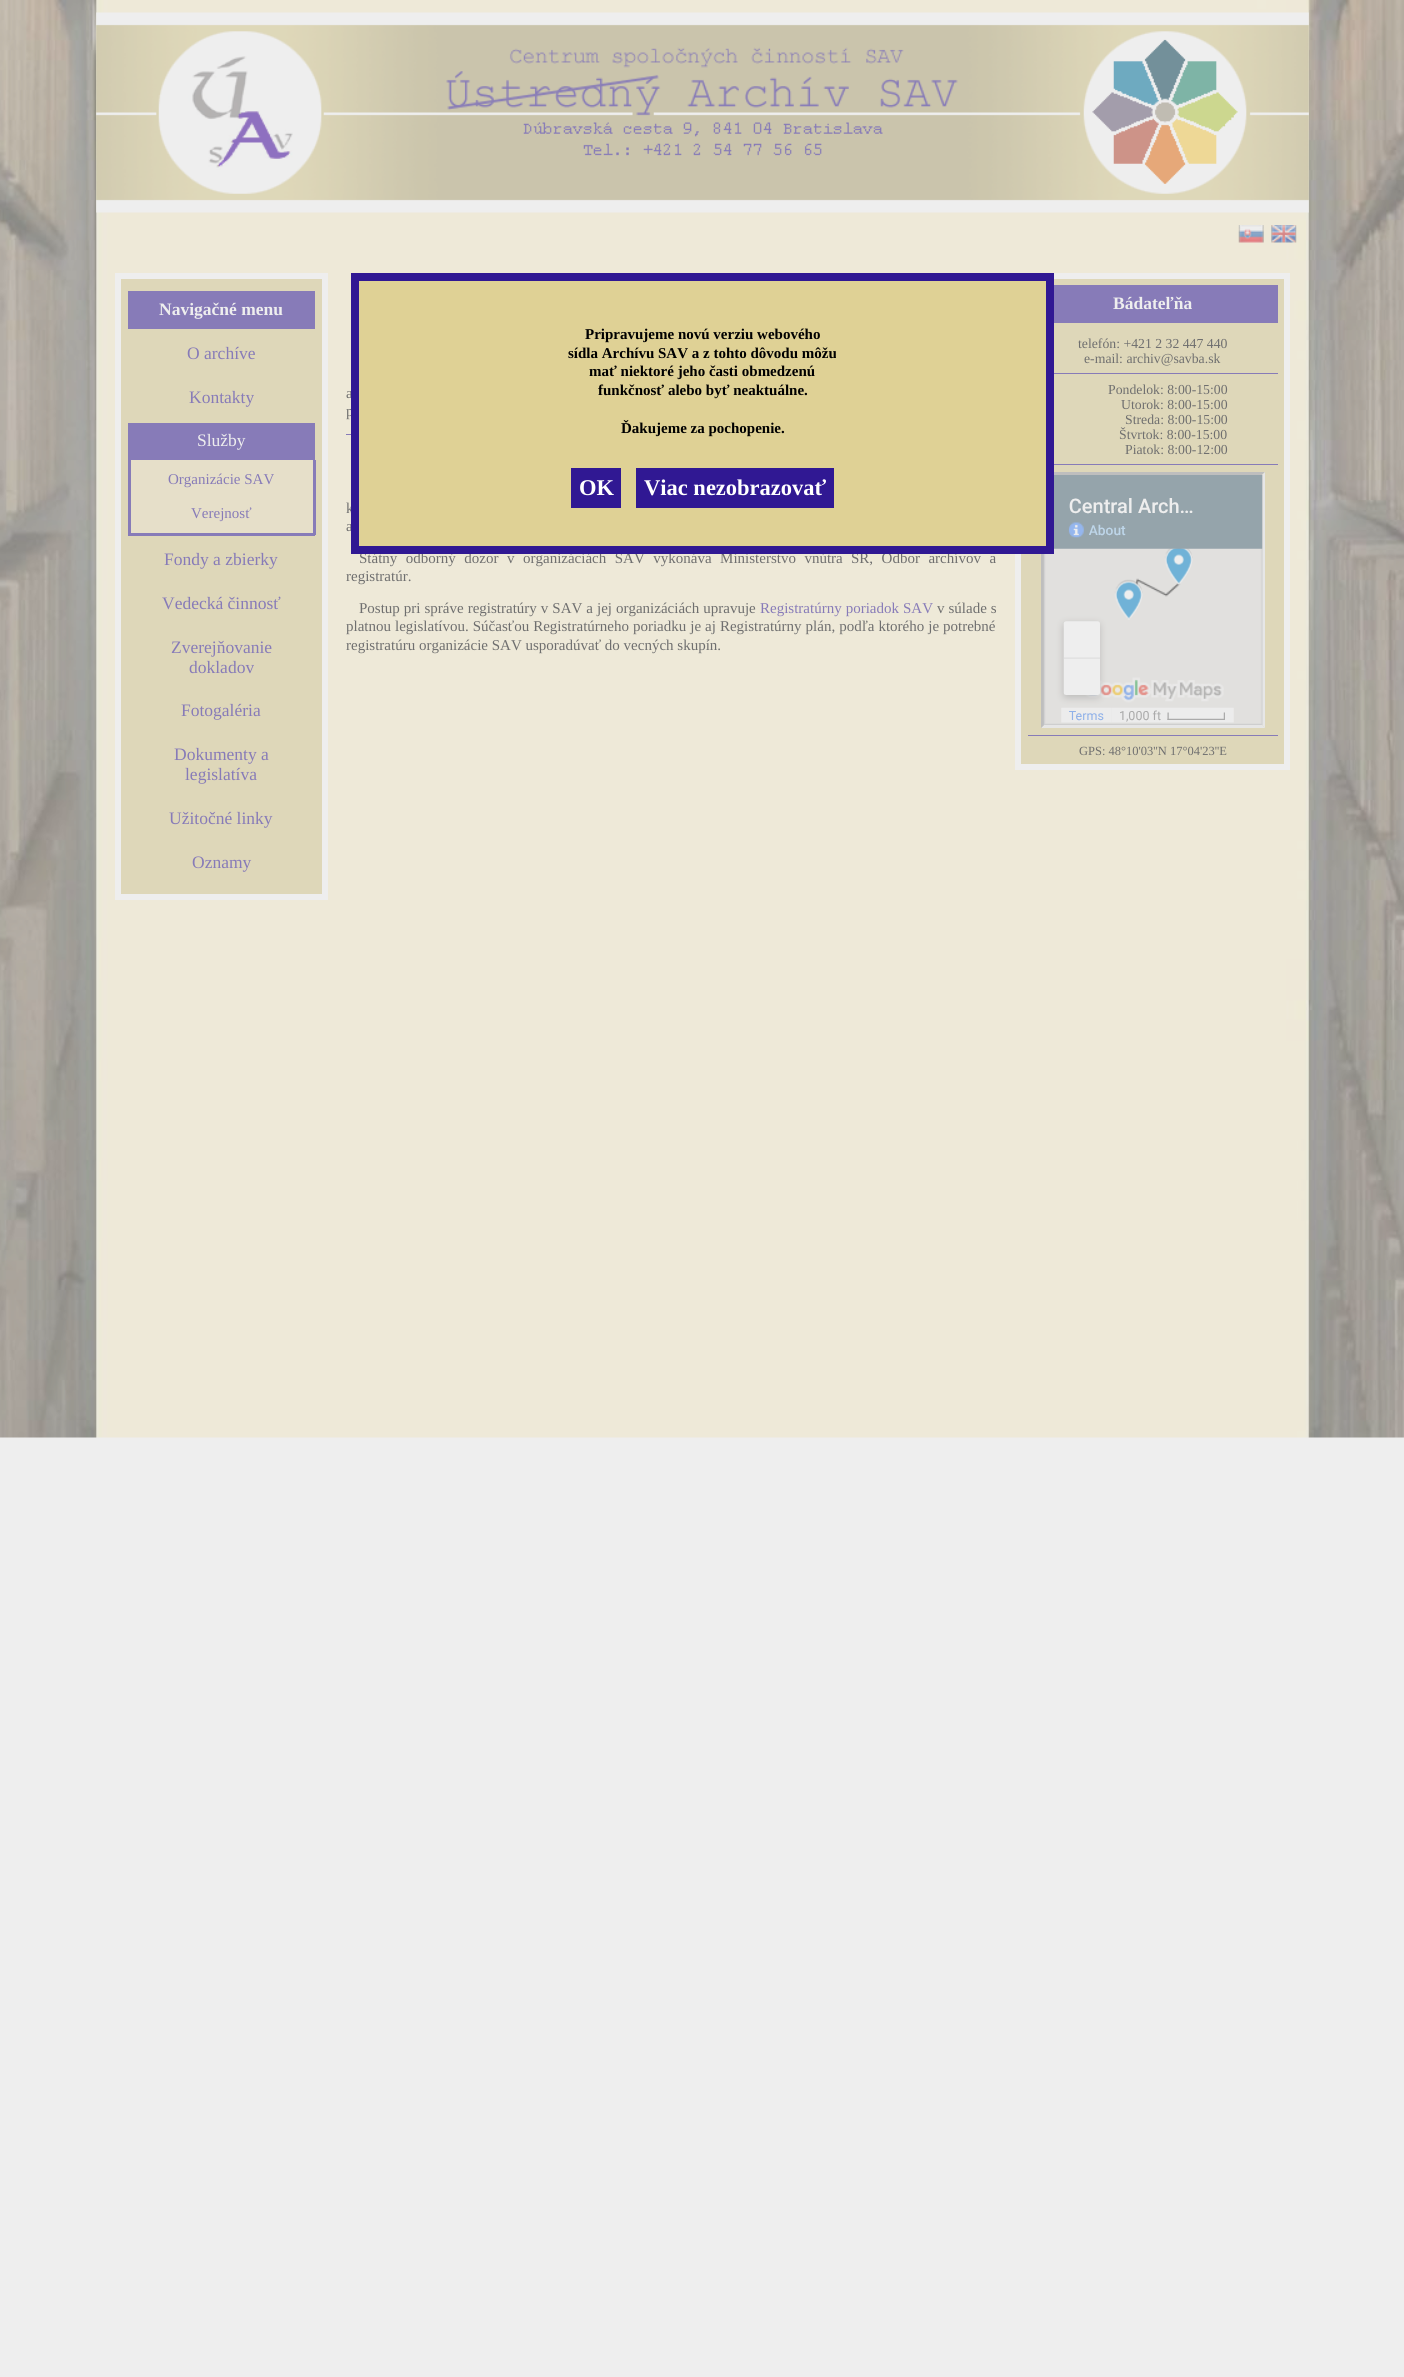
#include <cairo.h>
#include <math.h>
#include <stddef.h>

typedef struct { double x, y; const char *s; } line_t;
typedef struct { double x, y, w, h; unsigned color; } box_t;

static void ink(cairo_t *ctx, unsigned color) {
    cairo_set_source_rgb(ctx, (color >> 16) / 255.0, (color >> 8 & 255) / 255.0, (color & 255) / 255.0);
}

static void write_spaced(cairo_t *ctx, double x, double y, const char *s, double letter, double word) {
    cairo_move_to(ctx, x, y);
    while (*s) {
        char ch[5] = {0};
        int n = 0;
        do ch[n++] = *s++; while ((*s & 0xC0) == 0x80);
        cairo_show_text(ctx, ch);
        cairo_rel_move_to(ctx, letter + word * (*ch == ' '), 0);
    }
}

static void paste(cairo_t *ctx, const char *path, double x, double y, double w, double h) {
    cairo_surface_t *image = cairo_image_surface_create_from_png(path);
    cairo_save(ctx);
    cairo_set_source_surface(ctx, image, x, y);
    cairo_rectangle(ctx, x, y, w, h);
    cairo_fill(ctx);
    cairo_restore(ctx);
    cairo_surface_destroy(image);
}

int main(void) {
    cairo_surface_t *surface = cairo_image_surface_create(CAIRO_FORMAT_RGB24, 1404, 2377);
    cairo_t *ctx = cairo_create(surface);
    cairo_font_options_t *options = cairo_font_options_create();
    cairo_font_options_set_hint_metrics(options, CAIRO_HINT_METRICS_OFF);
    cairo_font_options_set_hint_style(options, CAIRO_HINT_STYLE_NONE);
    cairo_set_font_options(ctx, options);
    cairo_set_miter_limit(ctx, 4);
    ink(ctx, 0xEEEEEE);
    cairo_paint(ctx);
    paste(ctx, "media/1.png", 0, 0, 1404, 1438);
    paste(ctx, "media/2.png", 96, 12, 1213, 201);
    paste(ctx, "media/3.png", 1238, 225, 26, 18);
    paste(ctx, "media/4.png", 1271, 225, 26, 18);
    ink(ctx, 0xDED7B9);
    cairo_rectangle(ctx, 118, 276, 207, 621);
    cairo_fill_preserve(ctx);
    ink(ctx, 0xEEEEEE);
    cairo_set_line_width(ctx, 6);
    cairo_stroke(ctx);
    ink(ctx, 0x877BB8);
    cairo_rectangle(ctx, 128, 291, 187, 38);
    cairo_fill(ctx);
    cairo_select_font_face(ctx, "Liberation Serif", CAIRO_FONT_SLANT_NORMAL, CAIRO_FONT_WEIGHT_BOLD);
    cairo_set_font_size(ctx, 17.5);
    ink(ctx, 0xEEEEEE);
    cairo_move_to(ctx, 159, 315);
    cairo_show_text(ctx, "Navigačné menu");
    cairo_select_font_face(ctx, "Liberation Serif", CAIRO_FONT_SLANT_NORMAL, CAIRO_FONT_WEIGHT_NORMAL);
    ink(ctx, 0x877BB8);
    cairo_move_to(ctx, 187, 359);
    cairo_show_text(ctx, "O archíve");
    cairo_move_to(ctx, 189, 403);
    cairo_show_text(ctx, "Kontakty");
    cairo_rectangle(ctx, 128, 423, 187, 37);
    cairo_fill(ctx);
    ink(ctx, 0xEEEEEE);
    cairo_move_to(ctx, 197, 446);
    cairo_show_text(ctx, "Služby");
    {
        static const box_t items[] = {
            {131, 460, 182, 73, 0xE6DFC9},
            {313, 460, 3, 75, 0x877BB8},
            {128, 533, 187, 3, 0x877BB8},
            {128, 460, 3, 75, 0x877BB8},
        };
        for (size_t i = 0; i < sizeof items / sizeof *items; i++) {
            ink(ctx, items[i].color);
            cairo_rectangle(ctx, items[i].x, items[i].y, items[i].w, items[i].h);
            cairo_fill(ctx);
        }
    }
    cairo_set_font_size(ctx, 15);
    cairo_move_to(ctx, 168, 484);
    cairo_show_text(ctx, "Organizácie SAV");
    cairo_move_to(ctx, 191, 518);
    cairo_show_text(ctx, "Verejnosť");
    cairo_set_font_size(ctx, 17.5);
    {
        static const line_t items[] = {
            {164, 565, "Fondy a zbierky"},
            {162, 609, "Vedecká činnosť"},
            {171, 653, "Zverejňovanie"},
            {189, 673, "dokladov"},
            {181, 716, "Fotogaléria"},
            {174, 760, "Dokumenty a"},
            {185, 780, "legislatíva"},
            {169, 824, "Užitočné linky"},
            {192, 868, "Oznamy"},
        };
        for (size_t i = 0; i < sizeof items / sizeof *items; i++) {
            cairo_move_to(ctx, items[i].x, items[i].y);
            cairo_show_text(ctx, items[i].s);
        }
    }
    ink(ctx, 0xDED7B9);
    cairo_rectangle(ctx, 1018, 276, 269, 491);
    cairo_fill_preserve(ctx);
    ink(ctx, 0xEEEEEE);
    cairo_stroke(ctx);
    ink(ctx, 0xBEBEBE);
    cairo_new_path(ctx);
    cairo_move_to(ctx, 1041, 472);
    cairo_line_to(ctx, 1265, 472);
    cairo_line_to(ctx, 1262, 475);
    cairo_line_to(ctx, 1044, 475);
    cairo_close_path(ctx);
    cairo_fill(ctx);
    ink(ctx, 0xE6E6E6);
    cairo_new_path(ctx);
    cairo_move_to(ctx, 1265, 472);
    cairo_line_to(ctx, 1265, 728);
    cairo_line_to(ctx, 1262, 725);
    cairo_line_to(ctx, 1262, 475);
    cairo_close_path(ctx);
    cairo_fill(ctx);
    cairo_new_path(ctx);
    cairo_move_to(ctx, 1265, 728);
    cairo_line_to(ctx, 1041, 728);
    cairo_line_to(ctx, 1044, 725);
    cairo_line_to(ctx, 1262, 725);
    cairo_close_path(ctx);
    cairo_fill(ctx);
    ink(ctx, 0xBEBEBE);
    cairo_new_path(ctx);
    cairo_move_to(ctx, 1041, 728);
    cairo_line_to(ctx, 1041, 472);
    cairo_line_to(ctx, 1044, 475);
    cairo_line_to(ctx, 1044, 725);
    cairo_close_path(ctx);
    cairo_fill(ctx);
    paste(ctx, "media/5.png", 1043, 475, 220, 250);
    cairo_set_font_size(ctx, 15);
    ink(ctx, 0x6F6F6F);
    write_spaced(ctx, 346, 398, "a", 0, 4);
    {
        static const line_t items[] = {
            {346, 416, "p"},
            {346, 513, "k"},
            {346, 531, "a"},
        };
        for (size_t i = 0; i < sizeof items / sizeof *items; i++) {
            cairo_move_to(ctx, items[i].x, items[i].y);
            cairo_show_text(ctx, items[i].s);
        }
    }
    write_spaced(ctx, 359, 563, "Štátny odborný dozor v organizáciách SAV vykonáva Ministerstvo vnútra", 0, 4.75);
    write_spaced(ctx, 851, 563, "SR, Odbor archívov a", 0, 4.75);
    ink(ctx, 0xDFD195);
    cairo_rectangle(ctx, 355, 277, 695, 273);
    cairo_fill_preserve(ctx);
    ink(ctx, 0x301893);
    cairo_set_line_width(ctx, 8);
    cairo_stroke(ctx);
    cairo_select_font_face(ctx, "Liberation Serif", CAIRO_FONT_SLANT_NORMAL, CAIRO_FONT_WEIGHT_BOLD);
    ink(ctx, 0x000000);
    {
        static const line_t items[] = {
            {585, 339, "Pripravujeme novú verziu webového"},
            {568, 358, "sídla Archívu SAV a z tohto dôvodu môžu"},
            {589, 376, "mať niektoré jeho časti obmedzenú"},
            {598, 395, "funkčnosť alebo byť neaktuálne."},
            {621, 433, "Ďakujeme za pochopenie."},
        };
        for (size_t i = 0; i < sizeof items / sizeof *items; i++) {
            cairo_move_to(ctx, items[i].x, items[i].y);
            cairo_show_text(ctx, items[i].s);
        }
    }
    ink(ctx, 0x301893);
    cairo_rectangle(ctx, 571, 468, 50, 40);
    cairo_fill(ctx);
    cairo_set_font_size(ctx, 22.5);
    ink(ctx, 0xFFFFFF);
    cairo_move_to(ctx, 579, 495);
    cairo_show_text(ctx, "OK");
    ink(ctx, 0x301893);
    cairo_rectangle(ctx, 636, 468, 198, 40);
    cairo_fill(ctx);
    ink(ctx, 0xFFFFFF);
    cairo_move_to(ctx, 644, 495);
    cairo_show_text(ctx, "Viac nezobrazovať");
    ink(ctx, 0x877BB8);
    cairo_rectangle(ctx, 1054, 285, 224, 38);
    cairo_fill(ctx);
    cairo_set_font_size(ctx, 17.5);
    ink(ctx, 0xEEEEEE);
    cairo_move_to(ctx, 1113, 309);
    cairo_show_text(ctx, "Bádateľňa");
    cairo_select_font_face(ctx, "Liberation Serif", CAIRO_FONT_SLANT_NORMAL, CAIRO_FONT_WEIGHT_NORMAL);
    cairo_set_font_size(ctx, 13.75);
    ink(ctx, 0x6F6F6F);
    cairo_move_to(ctx, 1078, 348);
    cairo_show_text(ctx, "telefón: +421 2 32 447 440");
    cairo_move_to(ctx, 1084, 363);
    cairo_show_text(ctx, "e-mail: archiv@savba.sk");
    ink(ctx, 0x877BB8);
    cairo_rectangle(ctx, 1054, 373, 224, 1);
    cairo_fill(ctx);
    ink(ctx, 0x6F6F6F);
    {
        static const line_t items[] = {
            {1108, 394, "Pondelok: 8:00-15:00"},
            {1121, 409, "Utorok: 8:00-15:00"},
            {1125, 424, "Streda: 8:00-15:00"},
            {1119, 439, "Štvrtok: 8:00-15:00"},
            {1125, 454, "Piatok: 8:00-12:00"},
        };
        for (size_t i = 0; i < sizeof items / sizeof *items; i++) {
            cairo_move_to(ctx, items[i].x, items[i].y);
            cairo_show_text(ctx, items[i].s);
        }
    }
    ink(ctx, 0x877BB8);
    cairo_rectangle(ctx, 1054, 464, 224, 1);
    cairo_fill(ctx);
    cairo_rectangle(ctx, 1028, 735, 250, 1);
    cairo_fill(ctx);
    cairo_set_font_size(ctx, 12.5);
    ink(ctx, 0x6F6F6F);
    cairo_move_to(ctx, 1079, 755);
    cairo_show_text(ctx, "GPS: 48°10'03''N 17°04'23''E");
    ink(ctx, 0x877BB8);
    cairo_rectangle(ctx, 346, 434, 5, 1);
    cairo_fill(ctx);
    cairo_set_font_size(ctx, 15);
    ink(ctx, 0x6F6F6F);
    cairo_move_to(ctx, 346, 581);
    cairo_show_text(ctx, "registratúr.");
    write_spaced(ctx, 359, 613, "Postup pri správe registratúry v SAV a jej organizáciách upravuje", 0, 0.25);
    ink(ctx, 0x877BB8);
    write_spaced(ctx, 760, 613, "Registratúrny poriadok SAV", 0, 0.25);
    ink(ctx, 0x6F6F6F);
    write_spaced(ctx, 937, 613, "v súlade s", 0, 0.25);
    cairo_move_to(ctx, 346, 631);
    cairo_show_text(ctx, "platnou");
    write_spaced(ctx, 395, 631, "legislatívou. Súčasťou Registratúrneho poriadku je aj Registratúrny plán, podľa ktorého je potrebné", 0, 0.25);
    cairo_move_to(ctx, 346, 650);
    cairo_show_text(ctx, "registratúru organizácie SAV usporadúvať do vecných skupín.");
    cairo_surface_write_to_png(surface, "image.png");
    cairo_font_options_destroy(options);
    cairo_destroy(ctx);
    cairo_surface_destroy(surface);
    return 0;
}
